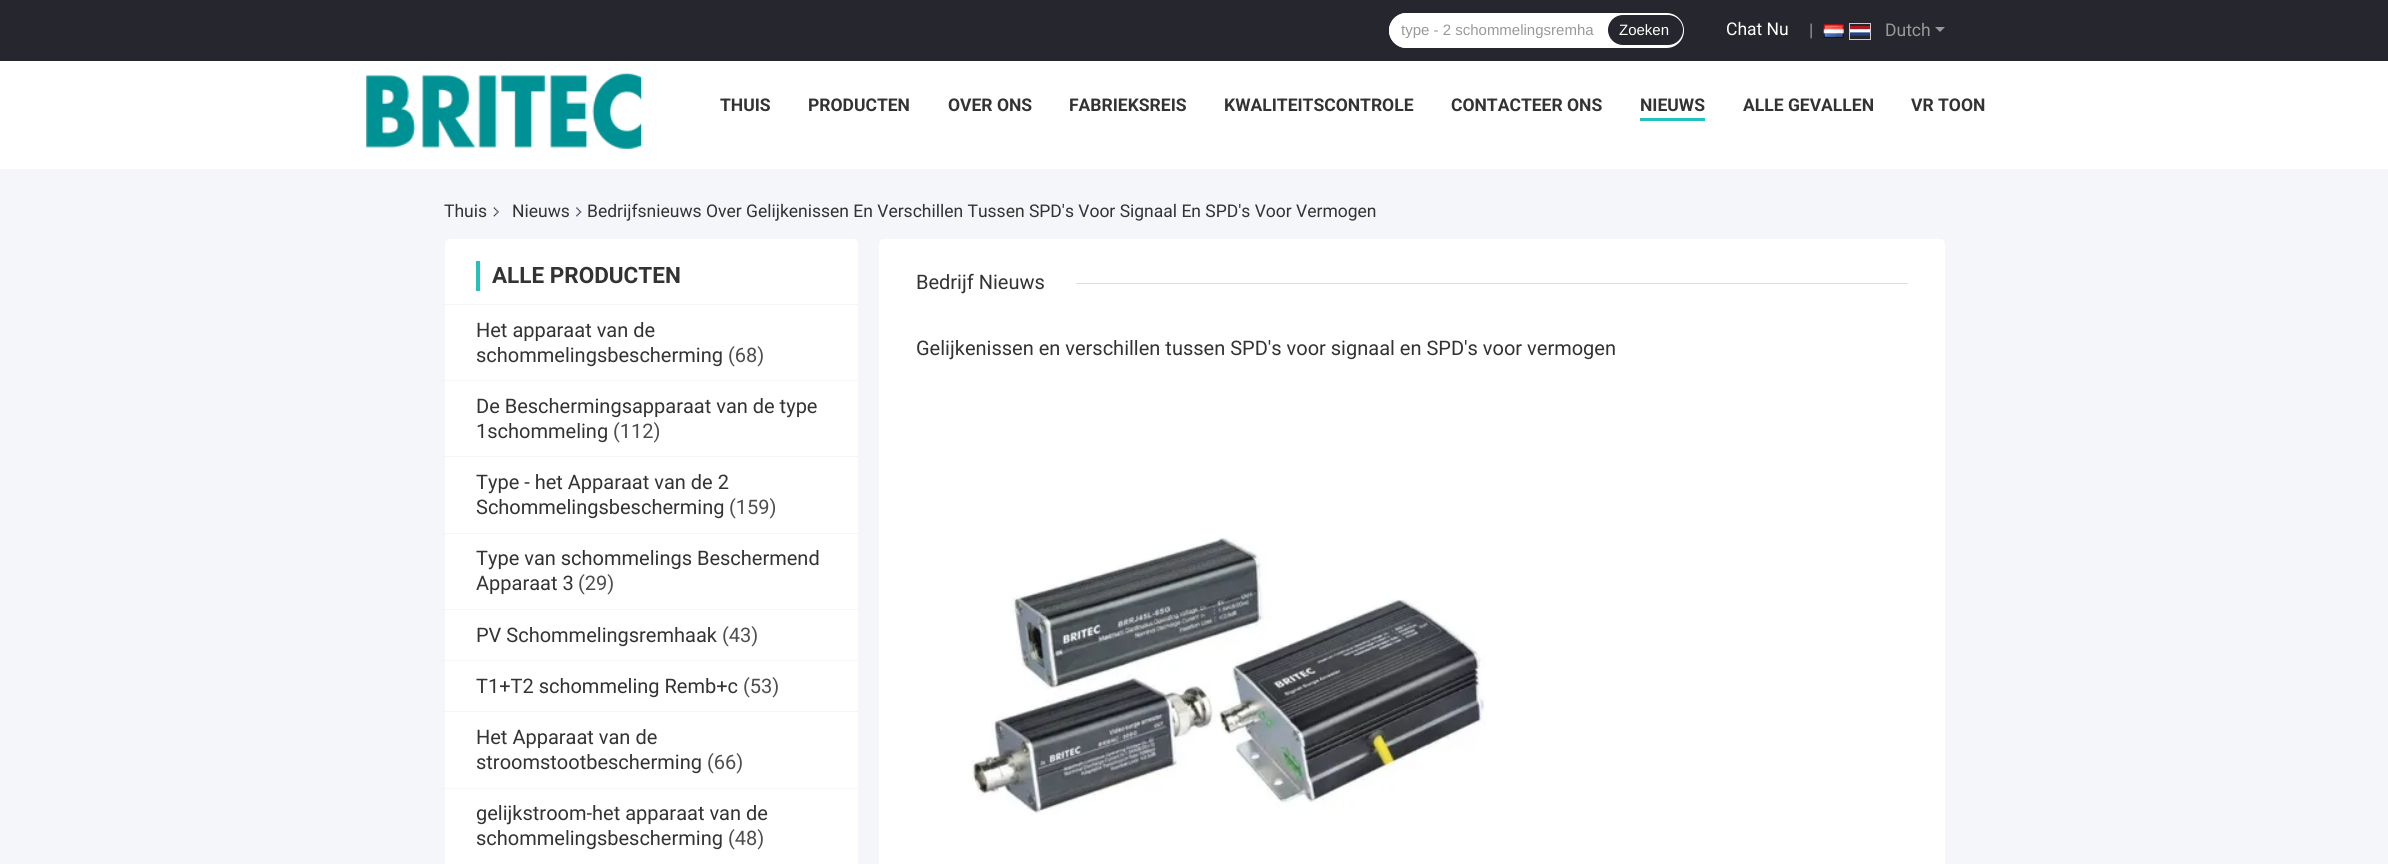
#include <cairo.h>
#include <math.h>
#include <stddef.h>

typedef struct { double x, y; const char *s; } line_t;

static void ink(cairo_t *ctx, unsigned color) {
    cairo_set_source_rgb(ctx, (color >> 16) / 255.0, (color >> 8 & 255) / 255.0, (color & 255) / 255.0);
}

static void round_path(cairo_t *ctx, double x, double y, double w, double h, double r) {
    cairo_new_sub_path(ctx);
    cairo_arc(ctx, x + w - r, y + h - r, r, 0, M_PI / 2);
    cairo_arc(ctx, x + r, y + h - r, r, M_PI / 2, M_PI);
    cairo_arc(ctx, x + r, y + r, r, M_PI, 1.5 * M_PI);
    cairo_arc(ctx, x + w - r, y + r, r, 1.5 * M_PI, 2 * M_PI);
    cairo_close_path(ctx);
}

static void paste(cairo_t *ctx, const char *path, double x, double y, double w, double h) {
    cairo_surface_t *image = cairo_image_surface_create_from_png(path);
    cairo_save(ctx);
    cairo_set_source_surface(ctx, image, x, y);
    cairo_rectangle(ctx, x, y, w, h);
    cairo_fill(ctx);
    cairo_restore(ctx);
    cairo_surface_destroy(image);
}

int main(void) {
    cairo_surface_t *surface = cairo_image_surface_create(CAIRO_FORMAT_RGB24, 2388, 864);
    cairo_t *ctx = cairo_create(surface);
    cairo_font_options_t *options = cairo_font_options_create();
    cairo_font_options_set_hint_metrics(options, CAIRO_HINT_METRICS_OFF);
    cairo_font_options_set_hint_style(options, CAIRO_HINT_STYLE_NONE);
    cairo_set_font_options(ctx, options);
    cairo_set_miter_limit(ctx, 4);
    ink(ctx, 0xF4F6F9);
    cairo_paint(ctx);
    ink(ctx, 0xFFFFFF);
    cairo_rectangle(ctx, 0, 61, 2388, 108);
    cairo_fill(ctx);
    ink(ctx, 0x26262E);
    cairo_rectangle(ctx, 0, 0, 2388, 61);
    cairo_fill(ctx);
    ink(ctx, 0xFFFFFF);
    round_path(ctx, 1389, 13, 295, 35, 17.5);
    cairo_fill(ctx);
    cairo_new_path(ctx);
    cairo_move_to(ctx, 1406.5, 13);
    cairo_line_to(ctx, 1608, 13);
    cairo_line_to(ctx, 1608, 48);
    cairo_line_to(ctx, 1406.5, 48);
    cairo_curve_to(ctx, 1397, 48, 1389, 40, 1389, 30.5);
    cairo_curve_to(ctx, 1389, 21, 1397, 13, 1406.5, 13);
    cairo_close_path(ctx);
    cairo_fill(ctx);
    cairo_select_font_face(ctx, "Liberation Sans", CAIRO_FONT_SLANT_NORMAL, CAIRO_FONT_WEIGHT_NORMAL);
    cairo_set_font_size(ctx, 15);
    ink(ctx, 0x999999);
    cairo_move_to(ctx, 1401, 35);
    cairo_show_text(ctx, "type - 2 schommelingsremha");
    ink(ctx, 0x26262E);
    round_path(ctx, 1608, 15, 75, 30, 15);
    cairo_fill(ctx);
    ink(ctx, 0xFFFFFF);
    cairo_move_to(ctx, 1619, 35);
    cairo_show_text(ctx, "Zoeken");
    cairo_select_font_face(ctx, "Roboto", CAIRO_FONT_SLANT_NORMAL, CAIRO_FONT_WEIGHT_NORMAL);
    cairo_set_font_size(ctx, 17.5);
    cairo_move_to(ctx, 1726, 35);
    cairo_show_text(ctx, "Chat Nu");
    ink(ctx, 0x999999);
    cairo_move_to(ctx, 1809, 36);
    cairo_show_text(ctx, "|");
    paste(ctx, "media/1.png", 1823, 24, 21, 14);
    cairo_rectangle(ctx, 1849.5, 23.5, 21, 16);
    ink(ctx, 0xCCCCCC);
    cairo_set_line_width(ctx, 1);
    cairo_stroke(ctx);
    ink(ctx, 0x999999);
    cairo_move_to(ctx, 1885, 36);
    cairo_show_text(ctx, "Dutch");
    paste(ctx, "media/2.png", 1850, 26, 20, 10);
    cairo_new_path(ctx);
    cairo_move_to(ctx, 1935, 27);
    cairo_line_to(ctx, 1945, 27);
    cairo_line_to(ctx, 1940, 32);
    cairo_close_path(ctx);
    cairo_fill(ctx);
    paste(ctx, "media/3.png", 366, 73, 276, 76);
    cairo_select_font_face(ctx, "Roboto", CAIRO_FONT_SLANT_NORMAL, CAIRO_FONT_WEIGHT_BOLD);
    ink(ctx, 0x333333);
    {
        static const line_t items[] = {
            {720, 111, "THUIS"},
            {808, 111, "PRODUCTEN"},
            {948, 111, "OVER ONS"},
            {1069, 111, "FABRIEKSREIS"},
            {1224, 111, "KWALITEITSCONTROLE"},
            {1451, 111, "CONTACTEER ONS"},
            {1640, 111, "NIEUWS"},
        };
        for (size_t i = 0; i < sizeof items / sizeof *items; i++) {
            cairo_move_to(ctx, items[i].x, items[i].y);
            cairo_show_text(ctx, items[i].s);
        }
    }
    ink(ctx, 0x23C2BE);
    cairo_rectangle(ctx, 1640, 118, 65, 3);
    cairo_fill(ctx);
    ink(ctx, 0x333333);
    cairo_move_to(ctx, 1743, 111);
    cairo_show_text(ctx, "ALLE GEVALLEN");
    cairo_move_to(ctx, 1911, 111);
    cairo_show_text(ctx, "VR TOON");
    cairo_select_font_face(ctx, "Roboto", CAIRO_FONT_SLANT_NORMAL, CAIRO_FONT_WEIGHT_NORMAL);
    cairo_move_to(ctx, 444, 217);
    cairo_show_text(ctx, "Thuis");
    paste(ctx, "media/4.png", 493, 207, 6, 10);
    cairo_move_to(ctx, 512, 217);
    cairo_show_text(ctx, "Nieuws");
    paste(ctx, "media/5.png", 576, 207, 6, 10);
    cairo_move_to(ctx, 587, 217);
    cairo_show_text(ctx, "Bedrijfsnieuws Over Gelijkenissen En Verschillen Tussen SPD's Voor Signaal En SPD's Voor Vermogen");
    ink(ctx, 0xFFFFFF);
    round_path(ctx, 445, 239, 413, 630, 5);
    cairo_fill(ctx);
    ink(ctx, 0xF5F5F5);
    cairo_rectangle(ctx, 445, 304, 413, 1);
    cairo_fill(ctx);
    ink(ctx, 0x23C2BE);
    cairo_rectangle(ctx, 476, 261, 4, 30);
    cairo_fill(ctx);
    cairo_select_font_face(ctx, "Roboto", CAIRO_FONT_SLANT_NORMAL, CAIRO_FONT_WEIGHT_BOLD);
    cairo_set_font_size(ctx, 22.5);
    ink(ctx, 0x333333);
    cairo_move_to(ctx, 492, 283);
    cairo_show_text(ctx, "ALLE PRODUCTEN");
    ink(ctx, 0xF5F5F5);
    cairo_rectangle(ctx, 445, 380, 413, 1);
    cairo_fill(ctx);
    cairo_select_font_face(ctx, "Roboto", CAIRO_FONT_SLANT_NORMAL, CAIRO_FONT_WEIGHT_NORMAL);
    cairo_set_font_size(ctx, 20);
    ink(ctx, 0x333333);
    cairo_move_to(ctx, 476, 337);
    cairo_show_text(ctx, "Het apparaat van de");
    cairo_move_to(ctx, 476, 362);
    cairo_show_text(ctx, "schommelingsbescherming");
    ink(ctx, 0x4E4E4E);
    cairo_move_to(ctx, 728, 362);
    cairo_show_text(ctx, "(68)");
    ink(ctx, 0xF5F5F5);
    cairo_rectangle(ctx, 445, 456, 413, 1);
    cairo_fill(ctx);
    ink(ctx, 0x333333);
    cairo_move_to(ctx, 476, 413);
    cairo_show_text(ctx, "De Beschermingsapparaat van de type");
    cairo_move_to(ctx, 476, 438);
    cairo_show_text(ctx, "1schommeling");
    ink(ctx, 0x4E4E4E);
    cairo_move_to(ctx, 613, 438);
    cairo_show_text(ctx, "(112)");
    ink(ctx, 0xF5F5F5);
    cairo_rectangle(ctx, 445, 533, 413, 1);
    cairo_fill(ctx);
    ink(ctx, 0x333333);
    cairo_move_to(ctx, 476, 489);
    cairo_show_text(ctx, "Type - het Apparaat van de 2");
    cairo_move_to(ctx, 476, 514);
    cairo_show_text(ctx, "Schommelingsbescherming");
    ink(ctx, 0x4E4E4E);
    cairo_move_to(ctx, 729, 514);
    cairo_show_text(ctx, "(159)");
    ink(ctx, 0xF5F5F5);
    cairo_rectangle(ctx, 445, 609, 413, 1);
    cairo_fill(ctx);
    ink(ctx, 0x333333);
    cairo_move_to(ctx, 476, 565);
    cairo_show_text(ctx, "Type van schommelings Beschermend");
    cairo_move_to(ctx, 476, 590);
    cairo_show_text(ctx, "Apparaat 3");
    ink(ctx, 0x4E4E4E);
    cairo_move_to(ctx, 578, 590);
    cairo_show_text(ctx, "(29)");
    ink(ctx, 0xF5F5F5);
    cairo_rectangle(ctx, 445, 660, 413, 1);
    cairo_fill(ctx);
    ink(ctx, 0x333333);
    cairo_move_to(ctx, 476, 642);
    cairo_show_text(ctx, "PV Schommelingsremhaak");
    ink(ctx, 0x4E4E4E);
    cairo_move_to(ctx, 722, 642);
    cairo_show_text(ctx, "(43)");
    ink(ctx, 0xF5F5F5);
    cairo_rectangle(ctx, 445, 711, 413, 1);
    cairo_fill(ctx);
    ink(ctx, 0x333333);
    cairo_move_to(ctx, 476, 693);
    cairo_show_text(ctx, "T1+T2 schommeling Remb+c");
    ink(ctx, 0x4E4E4E);
    cairo_move_to(ctx, 743, 693);
    cairo_show_text(ctx, "(53)");
    ink(ctx, 0xF5F5F5);
    cairo_rectangle(ctx, 445, 788, 413, 1);
    cairo_fill(ctx);
    ink(ctx, 0x333333);
    cairo_move_to(ctx, 476, 744);
    cairo_show_text(ctx, "Het Apparaat van de");
    cairo_move_to(ctx, 476, 769);
    cairo_show_text(ctx, "stroomstootbescherming");
    ink(ctx, 0x4E4E4E);
    cairo_move_to(ctx, 707, 769);
    cairo_show_text(ctx, "(66)");
    ink(ctx, 0x333333);
    cairo_move_to(ctx, 476, 820);
    cairo_show_text(ctx, "gelijkstroom-het apparaat van de");
    cairo_move_to(ctx, 476, 845);
    cairo_show_text(ctx, "schommelingsbescherming");
    ink(ctx, 0x4E4E4E);
    cairo_move_to(ctx, 728, 845);
    cairo_show_text(ctx, "(48)");
    ink(ctx, 0xFFFFFF);
    round_path(ctx, 879, 239, 1066, 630, 5);
    cairo_fill(ctx);
    ink(ctx, 0x333333);
    cairo_move_to(ctx, 916, 289);
    cairo_show_text(ctx, "Bedrijf Nieuws");
    ink(ctx, 0xDDDDDD);
    cairo_rectangle(ctx, 1076, 283, 832, 1);
    cairo_fill(ctx);
    ink(ctx, 0x333333);
    cairo_move_to(ctx, 916, 355);
    cairo_show_text(ctx, "Gelijkenissen en verschillen tussen SPD's voor signaal en SPD's voor vermogen");
    paste(ctx, "media/6.png", 971, 535, 515, 280);
    cairo_surface_write_to_png(surface, "image.png");
    cairo_font_options_destroy(options);
    cairo_destroy(ctx);
    cairo_surface_destroy(surface);
    return 0;
}
